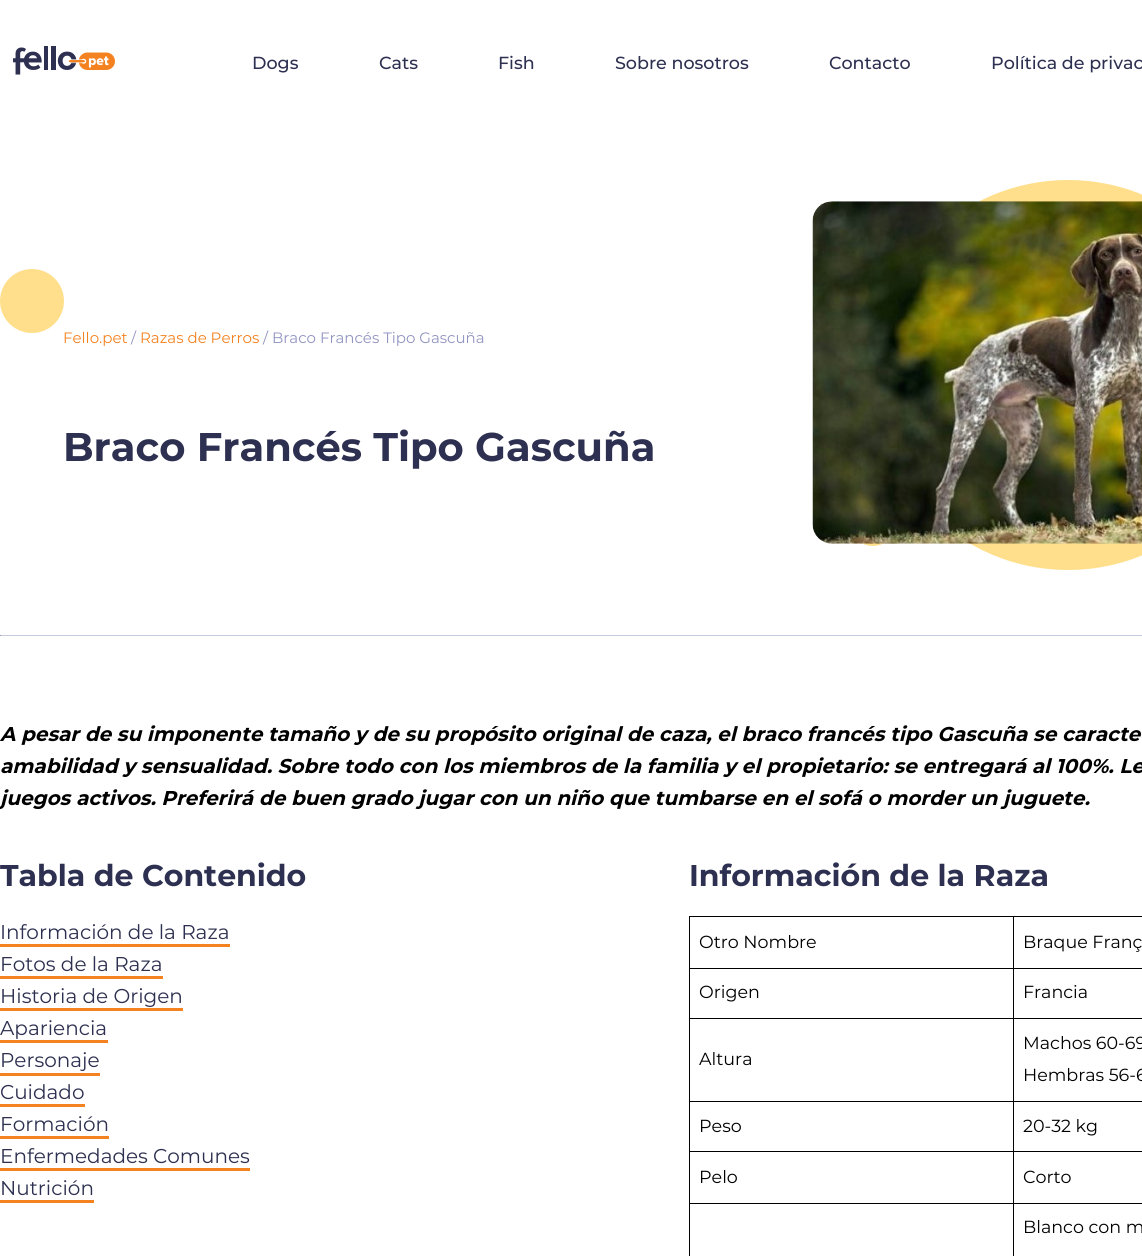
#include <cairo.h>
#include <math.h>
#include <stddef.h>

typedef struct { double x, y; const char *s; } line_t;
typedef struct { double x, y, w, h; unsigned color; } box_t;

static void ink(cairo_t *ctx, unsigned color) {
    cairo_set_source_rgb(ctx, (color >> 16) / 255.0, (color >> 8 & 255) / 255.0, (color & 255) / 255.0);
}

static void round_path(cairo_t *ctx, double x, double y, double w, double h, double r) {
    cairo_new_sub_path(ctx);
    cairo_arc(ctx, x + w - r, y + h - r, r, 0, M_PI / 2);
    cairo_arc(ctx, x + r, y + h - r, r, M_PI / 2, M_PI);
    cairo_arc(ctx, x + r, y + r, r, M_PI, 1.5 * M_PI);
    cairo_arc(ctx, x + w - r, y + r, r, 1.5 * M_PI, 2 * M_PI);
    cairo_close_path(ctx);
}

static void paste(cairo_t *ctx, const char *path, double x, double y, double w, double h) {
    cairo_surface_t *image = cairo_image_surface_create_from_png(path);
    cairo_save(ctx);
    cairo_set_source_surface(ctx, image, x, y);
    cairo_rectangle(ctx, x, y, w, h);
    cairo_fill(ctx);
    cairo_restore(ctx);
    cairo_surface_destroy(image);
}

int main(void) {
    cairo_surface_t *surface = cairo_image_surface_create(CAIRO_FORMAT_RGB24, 1142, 1256);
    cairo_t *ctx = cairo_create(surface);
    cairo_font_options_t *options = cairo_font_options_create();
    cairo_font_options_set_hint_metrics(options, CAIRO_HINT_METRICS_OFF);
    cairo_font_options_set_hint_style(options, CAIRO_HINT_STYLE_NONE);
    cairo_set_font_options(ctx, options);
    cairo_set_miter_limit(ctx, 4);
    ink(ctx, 0xFFFFFF);
    cairo_paint(ctx);
    paste(ctx, "media/1.png", 13, 46, 102, 29);
    cairo_select_font_face(ctx, "Montserrat Medium", CAIRO_FONT_SLANT_NORMAL, CAIRO_FONT_WEIGHT_NORMAL);
    cairo_set_font_size(ctx, 17.5);
    ink(ctx, 0x2D3050);
    {
        static const line_t items[] = {
            {252, 69, "Dogs"},
            {379, 69, "Cats"},
            {498, 69, "Fish"},
            {615, 69, "Sobre nosotros"},
            {829, 69, "Contacto"},
            {991, 69, "Política de privac"},
        };
        for (size_t i = 0; i < sizeof items / sizeof *items; i++) {
            cairo_move_to(ctx, items[i].x, items[i].y);
            cairo_show_text(ctx, items[i].s);
        }
    }
    ink(ctx, 0xFFDF8C);
    round_path(ctx, 851, 501, 44, 45, 22);
    cairo_fill(ctx);
    cairo_arc(ctx, 1068, 375, 195, 0, 2 * M_PI);
    cairo_fill(ctx);
    cairo_arc(ctx, 32, 301, 32, 0, 2 * M_PI);
    cairo_fill(ctx);
    cairo_select_font_face(ctx, "Montserrat", CAIRO_FONT_SLANT_NORMAL, CAIRO_FONT_WEIGHT_NORMAL);
    cairo_set_font_size(ctx, 15);
    ink(ctx, 0xF58220);
    cairo_move_to(ctx, 63, 343);
    cairo_show_text(ctx, "Fello.pet");
    ink(ctx, 0x9094C1);
    cairo_move_to(ctx, 131, 343);
    cairo_show_text(ctx, "/");
    ink(ctx, 0xF58220);
    cairo_move_to(ctx, 140, 343);
    cairo_show_text(ctx, "Razas de Perros");
    ink(ctx, 0x9094C1);
    cairo_move_to(ctx, 263, 343);
    cairo_show_text(ctx, "/ Braco Francés Tipo Gascuña");
    cairo_select_font_face(ctx, "Montserrat", CAIRO_FONT_SLANT_NORMAL, CAIRO_FONT_WEIGHT_BOLD);
    cairo_set_font_size(ctx, 40);
    ink(ctx, 0x2D3050);
    cairo_move_to(ctx, 63, 461);
    cairo_show_text(ctx, "Braco Francés Tipo Gascuña");
    paste(ctx, "media/2.png", 812, 201, 330, 343);
    ink(ctx, 0xC8CAE0);
    cairo_rectangle(ctx, 0, 635, 1142, 1);
    cairo_fill(ctx);
    ink(ctx, 0x9F9F9F);
    cairo_rectangle(ctx, 0, 635, 1, 1);
    cairo_fill(ctx);
    cairo_select_font_face(ctx, "Montserrat", CAIRO_FONT_SLANT_ITALIC, CAIRO_FONT_WEIGHT_BOLD);
    cairo_set_font_size(ctx, 20);
    ink(ctx, 0x000000);
    {
        static const line_t items[] = {
            {0, 741, "A pesar de su imponente tamaño y de su propósito original de caza, el braco francés tipo Gascuña se caracte"},
            {0, 773, "amabilidad y sensualidad. Sobre todo con los miembros de la familia y el propietario: se entregará al 100%. Le"},
            {0, 805, "juegos activos. Preferirá de buen grado jugar con un niño que tumbarse en el sofá o morder un juguete."},
        };
        for (size_t i = 0; i < sizeof items / sizeof *items; i++) {
            cairo_move_to(ctx, items[i].x, items[i].y);
            cairo_show_text(ctx, items[i].s);
        }
    }
    cairo_select_font_face(ctx, "Montserrat", CAIRO_FONT_SLANT_NORMAL, CAIRO_FONT_WEIGHT_BOLD);
    cairo_set_font_size(ctx, 30);
    ink(ctx, 0x2D3050);
    cairo_move_to(ctx, 0, 886);
    cairo_show_text(ctx, "Tabla de Сontenido");
    cairo_select_font_face(ctx, "Montserrat", CAIRO_FONT_SLANT_NORMAL, CAIRO_FONT_WEIGHT_NORMAL);
    cairo_set_font_size(ctx, 20);
    cairo_move_to(ctx, 0, 939);
    cairo_show_text(ctx, "Información de la Raza");
    ink(ctx, 0xF58220);
    cairo_rectangle(ctx, 0, 944, 230, 3);
    cairo_fill(ctx);
    ink(ctx, 0x2D3050);
    cairo_move_to(ctx, 0, 971);
    cairo_show_text(ctx, "Fotos de la Raza");
    ink(ctx, 0xF58220);
    cairo_rectangle(ctx, 0, 976, 163, 3);
    cairo_fill(ctx);
    ink(ctx, 0x2D3050);
    cairo_move_to(ctx, 0, 1003);
    cairo_show_text(ctx, "Historia de Origen");
    ink(ctx, 0xF58220);
    cairo_rectangle(ctx, 0, 1008, 183, 3);
    cairo_fill(ctx);
    ink(ctx, 0x2D3050);
    cairo_move_to(ctx, 0, 1035);
    cairo_show_text(ctx, "Apariencia");
    ink(ctx, 0xF58220);
    cairo_rectangle(ctx, 0, 1040, 108, 3);
    cairo_fill(ctx);
    ink(ctx, 0x2D3050);
    cairo_move_to(ctx, 0, 1067);
    cairo_show_text(ctx, "Personaje");
    ink(ctx, 0xF58220);
    cairo_rectangle(ctx, 0, 1073, 100, 3);
    cairo_fill(ctx);
    ink(ctx, 0x2D3050);
    cairo_move_to(ctx, 0, 1099);
    cairo_show_text(ctx, "Cuidado");
    ink(ctx, 0xF58220);
    cairo_rectangle(ctx, 0, 1104, 85, 3);
    cairo_fill(ctx);
    ink(ctx, 0x2D3050);
    cairo_move_to(ctx, 0, 1131);
    cairo_show_text(ctx, "Formación");
    ink(ctx, 0xF58220);
    cairo_rectangle(ctx, 0, 1136, 109, 3);
    cairo_fill(ctx);
    ink(ctx, 0x2D3050);
    cairo_move_to(ctx, 0, 1163);
    cairo_show_text(ctx, "Enfermedades Comunes");
    ink(ctx, 0xF58220);
    cairo_rectangle(ctx, 0, 1168, 250, 3);
    cairo_fill(ctx);
    ink(ctx, 0x2D3050);
    cairo_move_to(ctx, 0, 1195);
    cairo_show_text(ctx, "Nutrición");
    ink(ctx, 0xF58220);
    cairo_rectangle(ctx, 0, 1200, 94, 3);
    cairo_fill(ctx);
    cairo_select_font_face(ctx, "Montserrat", CAIRO_FONT_SLANT_NORMAL, CAIRO_FONT_WEIGHT_BOLD);
    cairo_set_font_size(ctx, 30);
    ink(ctx, 0x2D3050);
    cairo_move_to(ctx, 689, 886);
    cairo_show_text(ctx, "Información de la Raza");
    {
        static const box_t items[] = {
            {1013, 916, 129, 1, 0x000000},
            {1013, 968, 129, 1, 0x000000},
            {1013, 1018, 129, 1, 0x000000},
            {1013, 1101, 129, 1, 0x000000},
            {1013, 1151, 129, 1, 0x000000},
            {1013, 1203, 129, 1, 0x000000},
            {1013, 1203, 1, 53, 0x000000},
            {689, 1203, 325, 1, 0x000000},
            {1013, 1151, 1, 53, 0x000000},
            {689, 1151, 325, 1, 0x000000},
            {1013, 1101, 1, 52, 0x000000},
            {689, 1101, 325, 1, 0x000000},
            {1013, 1018, 1, 85, 0x000000},
            {689, 1018, 325, 1, 0x000000},
            {1013, 968, 1, 51, 0x000000},
            {689, 968, 325, 1, 0x000000},
            {1013, 916, 1, 53, 0x000000},
            {689, 916, 325, 1, 0x000000},
            {689, 1203, 1, 53, 0x000000},
            {689, 1151, 1, 53, 0x000000},
            {689, 1101, 1, 52, 0x000000},
            {689, 1018, 1, 85, 0x000000},
            {689, 968, 1, 51, 0x000000},
            {689, 916, 1, 53, 0x000000},
        };
        for (size_t i = 0; i < sizeof items / sizeof *items; i++) {
            ink(ctx, items[i].color);
            cairo_rectangle(ctx, items[i].x, items[i].y, items[i].w, items[i].h);
            cairo_fill(ctx);
        }
    }
    cairo_select_font_face(ctx, "Montserrat", CAIRO_FONT_SLANT_NORMAL, CAIRO_FONT_WEIGHT_NORMAL);
    cairo_set_font_size(ctx, 17.5);
    {
        static const line_t items[] = {
            {699, 948, "Otro Nombre"},
            {1023, 948, "Braque Franç"},
            {699, 998, "Origen"},
            {1023, 998, "Francia"},
            {699, 1065, "Altura"},
            {1023, 1049, "Machos 60-69"},
            {1023, 1081, "Hembras 56-6"},
            {699, 1132, "Peso"},
            {1023, 1132, "20-32 kg"},
            {699, 1183, "Pelo"},
            {1023, 1183, "Corto"},
            {1023, 1233, "Blanco con m"},
        };
        for (size_t i = 0; i < sizeof items / sizeof *items; i++) {
            cairo_move_to(ctx, items[i].x, items[i].y);
            cairo_show_text(ctx, items[i].s);
        }
    }
    cairo_surface_write_to_png(surface, "image.png");
    cairo_font_options_destroy(options);
    cairo_destroy(ctx);
    cairo_surface_destroy(surface);
    return 0;
}
